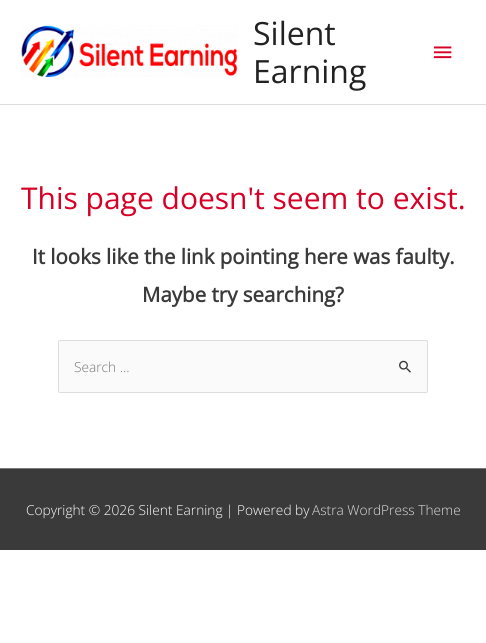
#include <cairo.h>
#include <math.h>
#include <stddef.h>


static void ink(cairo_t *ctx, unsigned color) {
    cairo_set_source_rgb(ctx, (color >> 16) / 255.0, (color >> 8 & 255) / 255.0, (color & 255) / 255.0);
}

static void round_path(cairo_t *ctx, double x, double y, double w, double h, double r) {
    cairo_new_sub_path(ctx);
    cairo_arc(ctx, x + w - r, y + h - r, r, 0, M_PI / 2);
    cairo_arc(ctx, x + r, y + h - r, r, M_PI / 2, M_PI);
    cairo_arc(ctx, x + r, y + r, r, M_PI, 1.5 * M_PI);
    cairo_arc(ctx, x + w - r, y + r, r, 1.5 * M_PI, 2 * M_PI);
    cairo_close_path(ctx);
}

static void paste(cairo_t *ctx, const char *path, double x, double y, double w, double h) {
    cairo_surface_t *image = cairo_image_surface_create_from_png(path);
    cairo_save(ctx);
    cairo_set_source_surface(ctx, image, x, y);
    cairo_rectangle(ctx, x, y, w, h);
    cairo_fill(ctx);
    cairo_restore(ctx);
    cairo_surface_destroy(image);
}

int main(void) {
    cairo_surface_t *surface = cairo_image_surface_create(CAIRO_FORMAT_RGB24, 486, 643);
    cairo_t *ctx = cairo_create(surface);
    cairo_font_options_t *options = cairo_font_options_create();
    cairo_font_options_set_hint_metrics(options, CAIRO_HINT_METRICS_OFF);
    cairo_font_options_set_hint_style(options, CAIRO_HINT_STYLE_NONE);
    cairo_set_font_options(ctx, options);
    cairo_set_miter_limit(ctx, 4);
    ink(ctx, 0xFFFFFF);
    cairo_paint(ctx);
    ink(ctx, 0xDDDDDD);
    cairo_rectangle(ctx, 0, 104, 486, 1);
    cairo_fill(ctx);
    paste(ctx, "media/1.png", 21, 25, 217, 52);
    cairo_select_font_face(ctx, "Open Sans", CAIRO_FONT_SLANT_NORMAL, CAIRO_FONT_WEIGHT_NORMAL);
    cairo_set_font_size(ctx, 32);
    ink(ctx, 0x222222);
    cairo_move_to(ctx, 253, 45);
    cairo_show_text(ctx, "Silent");
    cairo_move_to(ctx, 253, 83);
    cairo_show_text(ctx, "Earning");
    paste(ctx, "media/2.png", 433, 46, 19, 13);
    cairo_set_font_size(ctx, 30);
    ink(ctx, 0xD70026);
    cairo_move_to(ctx, 21, 209);
    cairo_show_text(ctx, "This page doesn't seem to exist.");
    cairo_select_font_face(ctx, "Open Sans", CAIRO_FONT_SLANT_NORMAL, CAIRO_FONT_WEIGHT_BOLD);
    cairo_set_font_size(ctx, 20.5);
    ink(ctx, 0x3A3A3A);
    cairo_move_to(ctx, 32, 264);
    cairo_show_text(ctx, "It looks like the link pointing here was faulty.");
    cairo_move_to(ctx, 142, 302);
    cairo_show_text(ctx, "Maybe try searching?");
    ink(ctx, 0xFAFAFA);
    round_path(ctx, 58.5, 340.5, 369, 52, 1.5);
    cairo_fill_preserve(ctx);
    ink(ctx, 0xDDDDDD);
    cairo_set_line_width(ctx, 1);
    cairo_stroke(ctx);
    cairo_select_font_face(ctx, "Open Sans Light", CAIRO_FONT_SLANT_NORMAL, CAIRO_FONT_WEIGHT_NORMAL);
    cairo_set_font_size(ctx, 13.7);
    ink(ctx, 0x757575);
    cairo_move_to(ctx, 74, 372);
    cairo_show_text(ctx, "Search …");
    paste(ctx, "media/3.png", 399, 360, 12, 13);
    ink(ctx, 0x7A7A7A);
    cairo_rectangle(ctx, 0, 468, 486, 1);
    cairo_fill(ctx);
    ink(ctx, 0x3A3A3A);
    cairo_rectangle(ctx, 0, 469, 486, 81);
    cairo_fill(ctx);
    ink(ctx, 0xFFFFFF);
    cairo_move_to(ctx, 26, 515);
    cairo_show_text(ctx, "Copyright © 2026 Silent Earning | Powered by");
    ink(ctx, 0xDDDDDD);
    cairo_move_to(ctx, 312, 515);
    cairo_show_text(ctx, "Astra WordPress Theme");
    cairo_surface_write_to_png(surface, "image.png");
    cairo_font_options_destroy(options);
    cairo_destroy(ctx);
    cairo_surface_destroy(surface);
    return 0;
}
